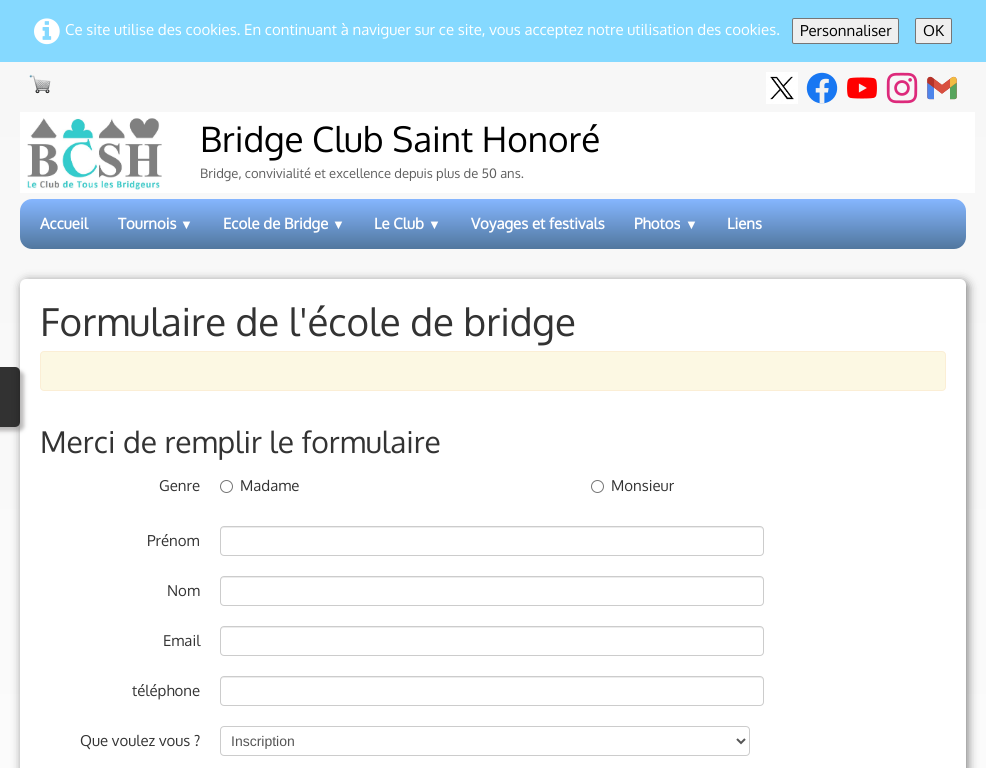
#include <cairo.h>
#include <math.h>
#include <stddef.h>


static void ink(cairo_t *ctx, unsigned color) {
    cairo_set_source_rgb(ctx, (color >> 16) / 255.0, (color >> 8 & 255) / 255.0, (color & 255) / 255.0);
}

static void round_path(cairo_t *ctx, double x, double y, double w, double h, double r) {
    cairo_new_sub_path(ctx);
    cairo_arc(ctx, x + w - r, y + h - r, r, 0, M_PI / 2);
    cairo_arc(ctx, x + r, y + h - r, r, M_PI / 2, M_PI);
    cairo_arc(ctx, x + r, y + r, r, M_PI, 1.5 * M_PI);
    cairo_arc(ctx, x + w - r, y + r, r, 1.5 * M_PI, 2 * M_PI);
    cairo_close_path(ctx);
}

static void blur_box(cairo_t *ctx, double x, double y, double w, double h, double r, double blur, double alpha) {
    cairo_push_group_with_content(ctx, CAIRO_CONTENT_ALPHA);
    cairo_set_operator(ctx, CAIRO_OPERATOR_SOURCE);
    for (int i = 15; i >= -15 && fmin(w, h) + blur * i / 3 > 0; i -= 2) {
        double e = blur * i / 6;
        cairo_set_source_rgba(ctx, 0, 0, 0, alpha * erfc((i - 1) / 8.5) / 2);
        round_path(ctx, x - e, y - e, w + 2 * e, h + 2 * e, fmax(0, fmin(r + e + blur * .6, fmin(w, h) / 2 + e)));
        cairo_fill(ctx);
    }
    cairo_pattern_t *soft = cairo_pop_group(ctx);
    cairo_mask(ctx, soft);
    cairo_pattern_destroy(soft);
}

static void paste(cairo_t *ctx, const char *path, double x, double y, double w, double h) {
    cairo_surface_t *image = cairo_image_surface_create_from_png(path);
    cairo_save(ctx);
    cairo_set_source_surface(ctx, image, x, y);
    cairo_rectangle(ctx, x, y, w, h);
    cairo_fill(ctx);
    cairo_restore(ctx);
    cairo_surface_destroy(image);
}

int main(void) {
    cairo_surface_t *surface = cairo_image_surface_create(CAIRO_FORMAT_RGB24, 986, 768);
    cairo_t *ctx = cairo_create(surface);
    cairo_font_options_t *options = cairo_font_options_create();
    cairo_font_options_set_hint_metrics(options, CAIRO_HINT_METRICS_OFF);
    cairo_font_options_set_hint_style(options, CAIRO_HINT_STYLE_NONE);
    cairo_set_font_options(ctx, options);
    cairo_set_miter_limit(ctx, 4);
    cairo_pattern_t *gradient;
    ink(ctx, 0xFFFFFF);
    cairo_paint(ctx);
    gradient = cairo_pattern_create_linear(493, 62, 493, 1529);
    cairo_pattern_add_color_stop_rgba(gradient, 0, 0.969, 0.969, 0.969, 1);
    cairo_pattern_add_color_stop_rgba(gradient, 1, 1, 1, 1, 1);
    cairo_set_source(ctx, gradient);
    cairo_pattern_destroy(gradient);
    cairo_rectangle(ctx, 0, 62, 986, 706);
    cairo_fill(ctx);
    ink(ctx, 0x000000);
    blur_box(ctx, 22, 281, 946, 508, 6, 5, 0.5);
    ink(ctx, 0xFFFFFF);
    round_path(ctx, 20, 279, 946, 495, 6);
    cairo_fill(ctx);
    cairo_save(ctx);
    cairo_set_fill_rule(ctx, CAIRO_FILL_RULE_EVEN_ODD);
    cairo_new_path(ctx);
    cairo_move_to(ctx, 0, 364);
    cairo_line_to(ctx, 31, 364);
    cairo_line_to(ctx, 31, 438);
    cairo_line_to(ctx, 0, 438);
    cairo_close_path(ctx);
    cairo_move_to(ctx, -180, 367);
    cairo_line_to(ctx, 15, 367);
    cairo_curve_to(ctx, 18, 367, 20, 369, 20, 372);
    cairo_line_to(ctx, 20, 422);
    cairo_curve_to(ctx, 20, 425, 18, 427, 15, 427);
    cairo_line_to(ctx, -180, 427);
    cairo_close_path(ctx);
    cairo_clip(ctx);
    ink(ctx, 0x797777);
    blur_box(ctx, -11, 371, 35, 60, 5, 2, 0.51);
    cairo_restore(ctx);
    cairo_set_source_rgba(ctx, 0, 0, 0, 0.8);
    cairo_new_path(ctx);
    cairo_move_to(ctx, -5, 367);
    cairo_line_to(ctx, 15, 367);
    cairo_curve_to(ctx, 18, 367, 20, 369, 20, 372);
    cairo_line_to(ctx, 20, 422);
    cairo_curve_to(ctx, 20, 425, 18, 427, 15, 427);
    cairo_line_to(ctx, -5, 427);
    cairo_close_path(ctx);
    cairo_fill(ctx);
    ink(ctx, 0x85D9FF);
    cairo_rectangle(ctx, 0, 0, 986, 62);
    cairo_fill(ctx);
    paste(ctx, "media/1.png", 34, 18, 26, 27);
    cairo_select_font_face(ctx, "Oxygen", CAIRO_FONT_SLANT_NORMAL, CAIRO_FONT_WEIGHT_NORMAL);
    cairo_set_font_size(ctx, 15);
    ink(ctx, 0xFFFFFF);
    cairo_move_to(ctx, 65, 35);
    cairo_show_text(ctx, "Ce site utilise des cookies. En continuant à naviguer sur ce site, vous acceptez notre utilisation des cookies.");
    ink(ctx, 0xEFEFEF);
    round_path(ctx, 792.5, 18.5, 106, 25, 1.5);
    cairo_fill_preserve(ctx);
    ink(ctx, 0x767676);
    cairo_set_line_width(ctx, 1);
    cairo_stroke(ctx);
    ink(ctx, 0x000000);
    cairo_move_to(ctx, 800, 36);
    cairo_show_text(ctx, "Personnaliser");
    ink(ctx, 0xEFEFEF);
    round_path(ctx, 915.5, 18.5, 36, 25, 1.5);
    cairo_fill_preserve(ctx);
    ink(ctx, 0x767676);
    cairo_stroke(ctx);
    ink(ctx, 0x000000);
    cairo_move_to(ctx, 923, 36);
    cairo_show_text(ctx, "OK");
    paste(ctx, "media/2.png", 29, 74, 22, 20);
    paste(ctx, "media/3.png", 766, 72, 32, 32);
    paste(ctx, "media/4.png", 806, 72, 32, 32);
    paste(ctx, "media/5.png", 847, 77, 30, 22);
    paste(ctx, "media/6.png", 886, 72, 32, 32);
    paste(ctx, "media/7.png", 927, 76, 30, 24);
    ink(ctx, 0xFFFFFF);
    cairo_rectangle(ctx, 20, 112, 955, 81);
    cairo_fill(ctx);
    paste(ctx, "media/8.png", 26, 118, 136, 72);
    cairo_set_font_size(ctx, 35);
    ink(ctx, 0x000000);
    cairo_move_to(ctx, 200, 152);
    cairo_show_text(ctx, "Bridge Club Saint Honoré");
    cairo_set_font_size(ctx, 13);
    ink(ctx, 0x5E5E5E);
    cairo_move_to(ctx, 200, 178);
    cairo_show_text(ctx, "Bridge, convivialité et excellence depuis plus de 50 ans.");
    gradient = cairo_pattern_create_linear(493, 199, 493, 249);
    cairo_pattern_add_color_stop_rgba(gradient, 0, 0.522, 0.714, 1, 1);
    cairo_pattern_add_color_stop_rgba(gradient, 1, 0.318, 0.467, 0.62, 1);
    cairo_set_source(ctx, gradient);
    cairo_pattern_destroy(gradient);
    round_path(ctx, 20, 199, 946, 50, 12);
    cairo_fill(ctx);
    cairo_select_font_face(ctx, "Oxygen", CAIRO_FONT_SLANT_NORMAL, CAIRO_FONT_WEIGHT_BOLD);
    cairo_set_font_size(ctx, 15);
    ink(ctx, 0xFFFFFF);
    cairo_move_to(ctx, 40, 229);
    cairo_show_text(ctx, "Accueil");
    cairo_move_to(ctx, 118, 229);
    cairo_show_text(ctx, "Tournois");
    cairo_select_font_face(ctx, "Liberation Serif", CAIRO_FONT_SLANT_NORMAL, CAIRO_FONT_WEIGHT_BOLD);
    cairo_set_font_size(ctx, 13);
    cairo_move_to(ctx, 180, 229);
    cairo_show_text(ctx, "▼");
    cairo_select_font_face(ctx, "Oxygen", CAIRO_FONT_SLANT_NORMAL, CAIRO_FONT_WEIGHT_BOLD);
    cairo_set_font_size(ctx, 15);
    cairo_move_to(ctx, 223, 229);
    cairo_show_text(ctx, "Ecole de Bridge");
    cairo_select_font_face(ctx, "Liberation Serif", CAIRO_FONT_SLANT_NORMAL, CAIRO_FONT_WEIGHT_BOLD);
    cairo_set_font_size(ctx, 13);
    cairo_move_to(ctx, 332, 229);
    cairo_show_text(ctx, "▼");
    cairo_select_font_face(ctx, "Oxygen", CAIRO_FONT_SLANT_NORMAL, CAIRO_FONT_WEIGHT_BOLD);
    cairo_set_font_size(ctx, 15);
    cairo_move_to(ctx, 374, 229);
    cairo_show_text(ctx, "Le Club");
    cairo_select_font_face(ctx, "Liberation Serif", CAIRO_FONT_SLANT_NORMAL, CAIRO_FONT_WEIGHT_BOLD);
    cairo_set_font_size(ctx, 13);
    cairo_move_to(ctx, 428, 229);
    cairo_show_text(ctx, "▼");
    cairo_select_font_face(ctx, "Oxygen", CAIRO_FONT_SLANT_NORMAL, CAIRO_FONT_WEIGHT_BOLD);
    cairo_set_font_size(ctx, 15);
    cairo_move_to(ctx, 471, 229);
    cairo_show_text(ctx, "Voyages et festivals");
    cairo_move_to(ctx, 634, 229);
    cairo_show_text(ctx, "Photos");
    cairo_select_font_face(ctx, "Liberation Serif", CAIRO_FONT_SLANT_NORMAL, CAIRO_FONT_WEIGHT_BOLD);
    cairo_set_font_size(ctx, 13);
    cairo_move_to(ctx, 685, 229);
    cairo_show_text(ctx, "▼");
    cairo_select_font_face(ctx, "Oxygen", CAIRO_FONT_SLANT_NORMAL, CAIRO_FONT_WEIGHT_BOLD);
    cairo_set_font_size(ctx, 15);
    cairo_move_to(ctx, 727, 229);
    cairo_show_text(ctx, "Liens");
    cairo_select_font_face(ctx, "Oxygen", CAIRO_FONT_SLANT_NORMAL, CAIRO_FONT_WEIGHT_NORMAL);
    cairo_set_font_size(ctx, 38.5);
    ink(ctx, 0x333333);
    cairo_move_to(ctx, 40, 336);
    cairo_show_text(ctx, "Formulaire de l'école de bridge");
    ink(ctx, 0xFCF8E3);
    round_path(ctx, 40.5, 351.5, 905, 39, 3.5);
    cairo_fill_preserve(ctx);
    ink(ctx, 0xFBEED5);
    cairo_stroke(ctx);
    cairo_set_font_size(ctx, 30);
    ink(ctx, 0x333333);
    cairo_move_to(ctx, 40, 453);
    cairo_show_text(ctx, "Merci de remplir le formulaire");
    cairo_set_font_size(ctx, 15);
    cairo_move_to(ctx, 159, 491);
    cairo_show_text(ctx, "Genre");
    cairo_new_path(ctx);
    cairo_arc(ctx, 226.5, 486.5, 6, 0, 2 * M_PI);
    ink(ctx, 0x767676);
    cairo_stroke(ctx);
    ink(ctx, 0x333333);
    cairo_move_to(ctx, 240, 491);
    cairo_show_text(ctx, "Madame");
    cairo_new_path(ctx);
    cairo_arc(ctx, 597.5, 486.5, 6, 0, 2 * M_PI);
    ink(ctx, 0x767676);
    cairo_stroke(ctx);
    ink(ctx, 0x333333);
    cairo_move_to(ctx, 611, 491);
    cairo_show_text(ctx, "Monsieur");
    cairo_move_to(ctx, 147, 546);
    cairo_show_text(ctx, "Prénom");
    ink(ctx, 0xECECEC);
    cairo_new_path(ctx);
    cairo_move_to(ctx, 224, 528);
    cairo_line_to(ctx, 760, 528);
    cairo_curve_to(ctx, 762, 528, 763, 529, 763, 531);
    cairo_line_to(ctx, 763, 530);
    cairo_curve_to(ctx, 763, 528, 762, 527, 760, 527);
    cairo_line_to(ctx, 224, 527);
    cairo_curve_to(ctx, 222, 527, 221, 528, 221, 530);
    cairo_line_to(ctx, 221, 531);
    cairo_curve_to(ctx, 221, 529, 222, 528, 224, 528);
    cairo_close_path(ctx);
    cairo_fill(ctx);
    round_path(ctx, 220.5, 526.5, 543, 29, 3.5);
    ink(ctx, 0xCCCCCC);
    cairo_stroke(ctx);
    ink(ctx, 0x333333);
    cairo_move_to(ctx, 167, 596);
    cairo_show_text(ctx, "Nom");
    ink(ctx, 0xECECEC);
    cairo_new_path(ctx);
    cairo_move_to(ctx, 224, 578);
    cairo_line_to(ctx, 760, 578);
    cairo_curve_to(ctx, 762, 578, 763, 579, 763, 581);
    cairo_line_to(ctx, 763, 580);
    cairo_curve_to(ctx, 763, 578, 762, 577, 760, 577);
    cairo_line_to(ctx, 224, 577);
    cairo_curve_to(ctx, 222, 577, 221, 578, 221, 580);
    cairo_line_to(ctx, 221, 581);
    cairo_curve_to(ctx, 221, 579, 222, 578, 224, 578);
    cairo_close_path(ctx);
    cairo_fill(ctx);
    round_path(ctx, 220.5, 576.5, 543, 29, 3.5);
    ink(ctx, 0xCCCCCC);
    cairo_stroke(ctx);
    ink(ctx, 0x333333);
    cairo_move_to(ctx, 163, 646);
    cairo_show_text(ctx, "Email");
    ink(ctx, 0xECECEC);
    cairo_new_path(ctx);
    cairo_move_to(ctx, 224, 628);
    cairo_line_to(ctx, 760, 628);
    cairo_curve_to(ctx, 762, 628, 763, 629, 763, 631);
    cairo_line_to(ctx, 763, 630);
    cairo_curve_to(ctx, 763, 628, 762, 627, 760, 627);
    cairo_line_to(ctx, 224, 627);
    cairo_curve_to(ctx, 222, 627, 221, 628, 221, 630);
    cairo_line_to(ctx, 221, 631);
    cairo_curve_to(ctx, 221, 629, 222, 628, 224, 628);
    cairo_close_path(ctx);
    cairo_fill(ctx);
    round_path(ctx, 220.5, 626.5, 543, 29, 3.5);
    ink(ctx, 0xCCCCCC);
    cairo_stroke(ctx);
    ink(ctx, 0x333333);
    cairo_move_to(ctx, 132, 696);
    cairo_show_text(ctx, "téléphone");
    ink(ctx, 0xECECEC);
    cairo_new_path(ctx);
    cairo_move_to(ctx, 224, 678);
    cairo_line_to(ctx, 760, 678);
    cairo_curve_to(ctx, 762, 678, 763, 679, 763, 681);
    cairo_line_to(ctx, 763, 680);
    cairo_curve_to(ctx, 763, 678, 762, 677, 760, 677);
    cairo_line_to(ctx, 224, 677);
    cairo_curve_to(ctx, 222, 677, 221, 678, 221, 680);
    cairo_line_to(ctx, 221, 681);
    cairo_curve_to(ctx, 221, 679, 222, 678, 224, 678);
    cairo_close_path(ctx);
    cairo_fill(ctx);
    round_path(ctx, 220.5, 676.5, 543, 29, 3.5);
    ink(ctx, 0xCCCCCC);
    cairo_stroke(ctx);
    ink(ctx, 0x333333);
    cairo_move_to(ctx, 80, 746);
    cairo_show_text(ctx, "Que voulez vous ?");
    round_path(ctx, 220.5, 726.5, 529, 29, 3.5);
    ink(ctx, 0xCCCCCC);
    cairo_stroke(ctx);
    cairo_new_path(ctx);
    cairo_move_to(ctx, 737, 739);
    cairo_line_to(ctx, 741, 743);
    cairo_line_to(ctx, 745, 739);
    ink(ctx, 0x555555);
    cairo_set_line_width(ctx, 2);
    cairo_stroke(ctx);
    cairo_select_font_face(ctx, "Liberation Sans", CAIRO_FONT_SLANT_NORMAL, CAIRO_FONT_WEIGHT_NORMAL);
    cairo_set_font_size(ctx, 14);
    cairo_move_to(ctx, 231, 746);
    cairo_show_text(ctx, "Inscription");
    cairo_surface_write_to_png(surface, "image.png");
    cairo_font_options_destroy(options);
    cairo_destroy(ctx);
    cairo_surface_destroy(surface);
    return 0;
}
